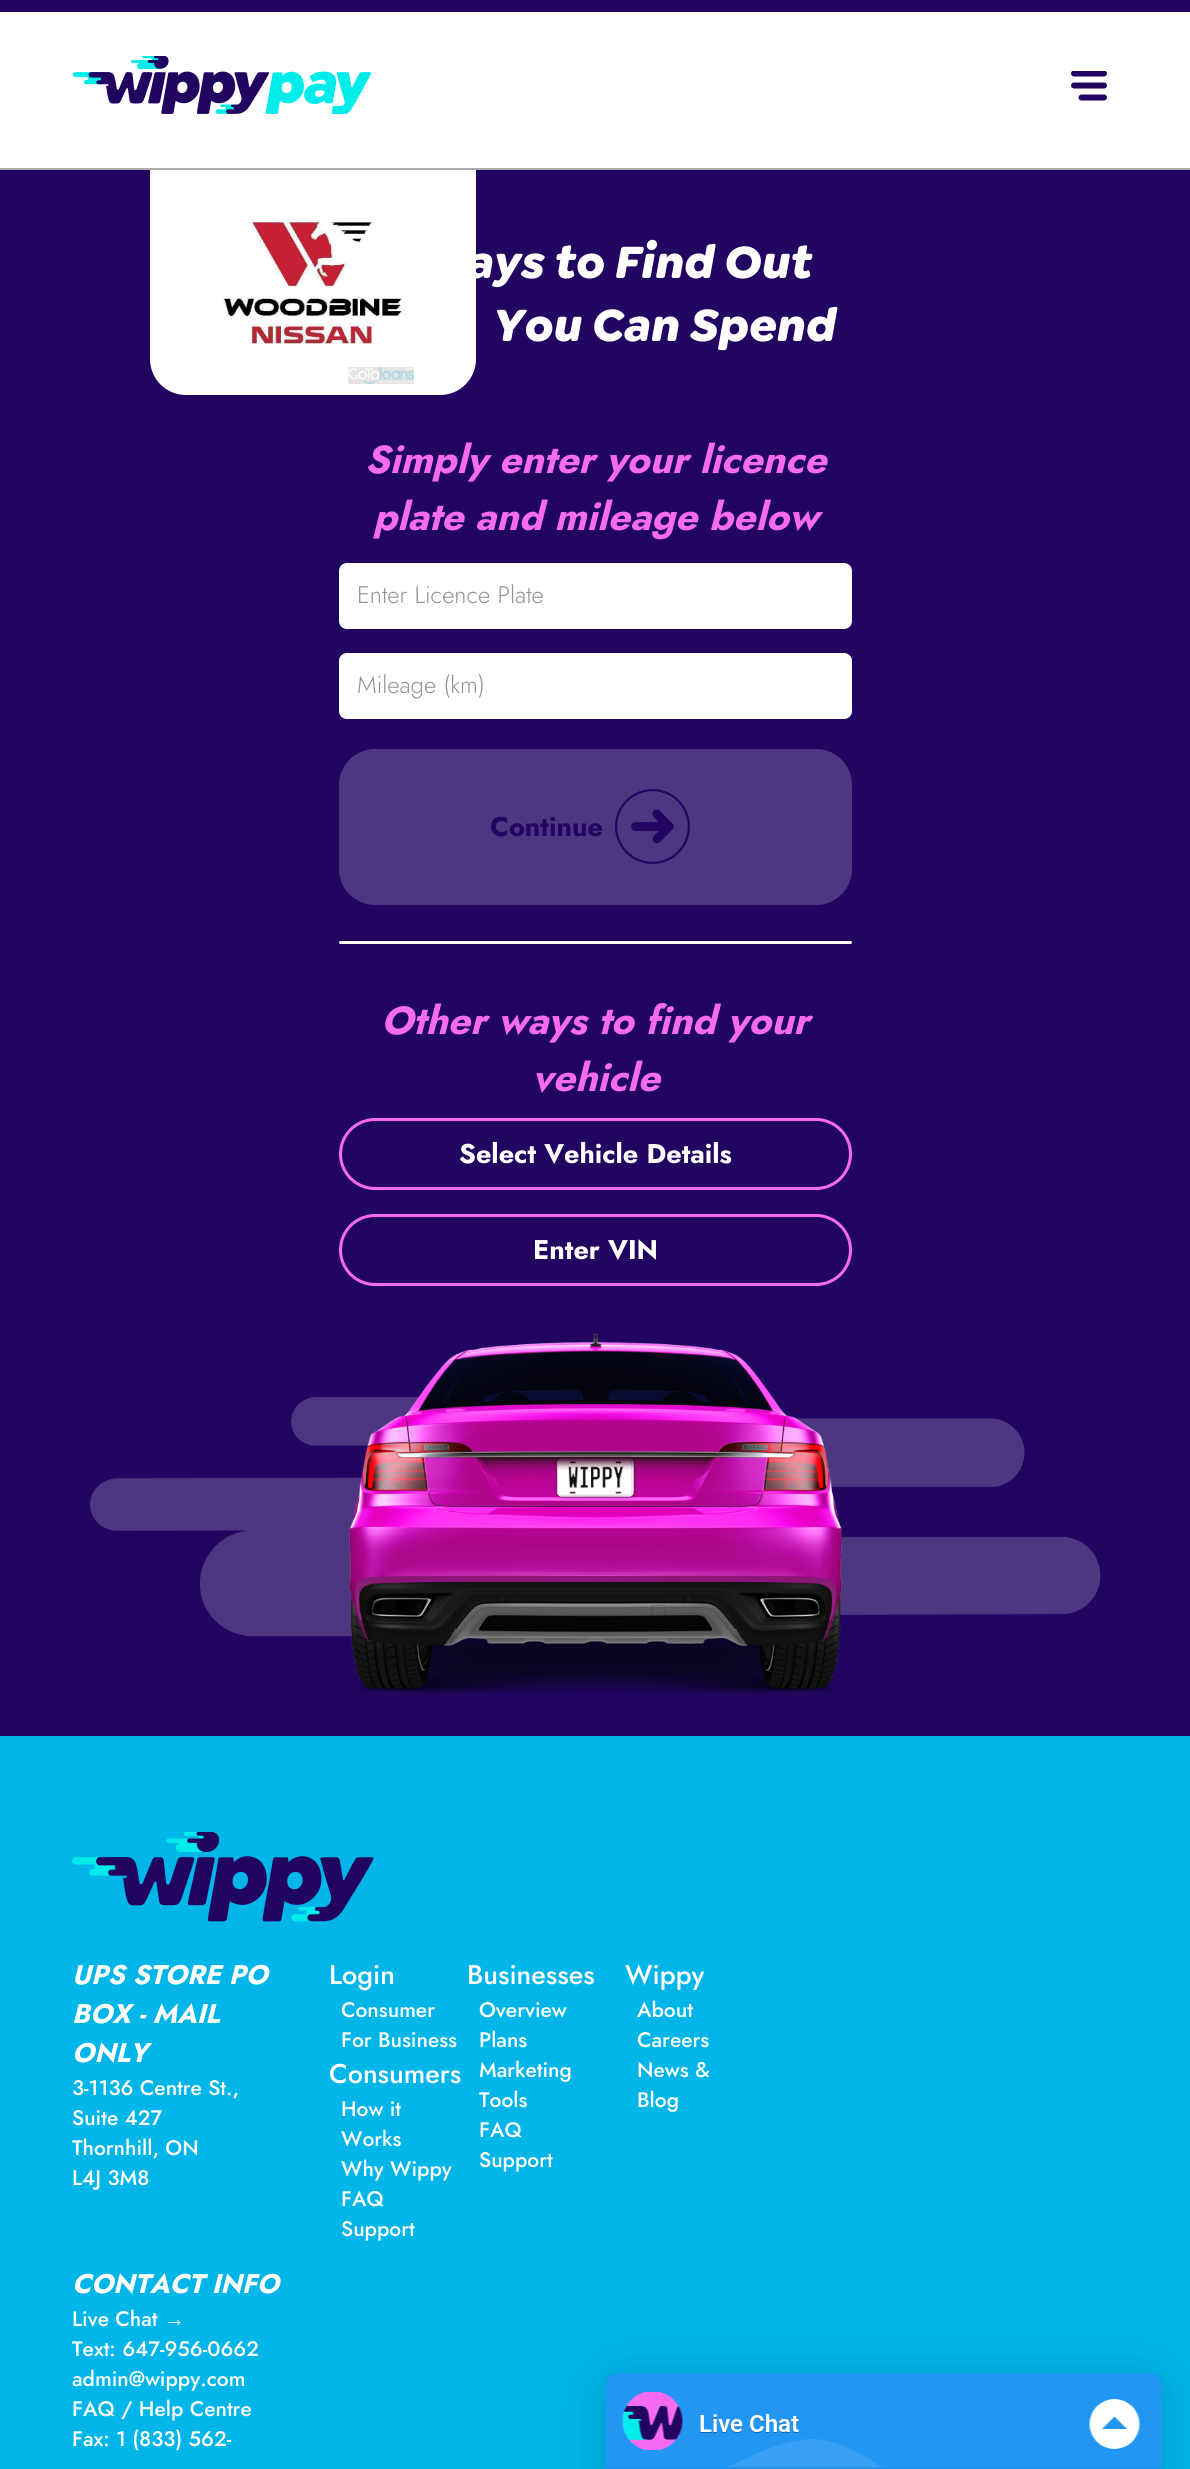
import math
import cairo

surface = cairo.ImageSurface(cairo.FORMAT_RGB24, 1190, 2469)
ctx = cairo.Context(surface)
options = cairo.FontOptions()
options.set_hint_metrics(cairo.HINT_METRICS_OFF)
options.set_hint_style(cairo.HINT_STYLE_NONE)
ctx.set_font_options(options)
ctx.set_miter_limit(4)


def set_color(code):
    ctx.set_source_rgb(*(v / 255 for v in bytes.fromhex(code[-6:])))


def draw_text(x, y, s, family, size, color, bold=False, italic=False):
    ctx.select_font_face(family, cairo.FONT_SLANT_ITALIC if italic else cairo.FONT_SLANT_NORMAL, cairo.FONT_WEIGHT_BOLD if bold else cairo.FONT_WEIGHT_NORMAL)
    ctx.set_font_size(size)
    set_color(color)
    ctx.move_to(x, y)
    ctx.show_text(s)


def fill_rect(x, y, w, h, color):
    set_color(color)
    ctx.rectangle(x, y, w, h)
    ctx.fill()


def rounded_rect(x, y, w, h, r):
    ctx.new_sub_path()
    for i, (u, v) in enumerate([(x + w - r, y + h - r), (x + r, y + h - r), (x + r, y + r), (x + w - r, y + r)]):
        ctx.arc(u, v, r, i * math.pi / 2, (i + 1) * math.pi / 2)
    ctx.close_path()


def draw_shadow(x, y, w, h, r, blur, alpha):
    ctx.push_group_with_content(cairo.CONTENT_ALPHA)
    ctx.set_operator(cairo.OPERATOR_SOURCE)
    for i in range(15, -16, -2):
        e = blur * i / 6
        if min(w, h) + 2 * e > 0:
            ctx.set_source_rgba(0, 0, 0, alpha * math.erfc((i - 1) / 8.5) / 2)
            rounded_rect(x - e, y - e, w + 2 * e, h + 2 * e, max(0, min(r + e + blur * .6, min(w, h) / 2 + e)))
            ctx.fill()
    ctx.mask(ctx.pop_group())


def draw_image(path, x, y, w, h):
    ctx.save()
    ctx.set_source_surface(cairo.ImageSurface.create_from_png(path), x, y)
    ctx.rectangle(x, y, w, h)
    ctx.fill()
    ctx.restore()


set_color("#ffffff")
ctx.paint()
fill_rect(0, 0, 1190, 12, "#210561")
fill_rect(0, 168, 1190, 2, "#acacac")
draw_image("assets/img1.png", 72, 56, 300, 58)
draw_image("assets/img2.png", 1071, 71, 36, 30)
fill_rect(0, 170, 1190, 1566, "#210561")
set_color("#ffffff")
ctx.new_path()
ctx.move_to(150, 170)
ctx.line_to(476, 170)
ctx.line_to(476, 359)
ctx.curve_to(476, 379, 460, 395, 440, 395)
ctx.line_to(186, 395)
ctx.curve_to(166, 395, 150, 379, 150, 359)
ctx.close_path()
ctx.fill()
draw_image("assets/img3.png", 222, 219, 192, 165)
draw_text(465, 278, "ays to Find Out", "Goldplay", 48, "#ffffff", bold=True)
draw_text(491, 341, "You Can Spend", "Goldplay", 48, "#ffffff", bold=True)
draw_text(365, 473, "Simply enter your licence", "Jost", 39, "#f76bf2", bold=True, italic=True)
draw_text(373, 530, "plate and mileage below", "Jost", 39, "#f76bf2", bold=True, italic=True)
set_color("#ffffff")
ctx.new_path()
ctx.move_to(347, 563)
ctx.line_to(347, 629)
ctx.curve_to(342.5, 629, 339, 625.5, 339, 621)
ctx.line_to(339, 571)
ctx.curve_to(339, 566.5, 342.5, 563, 347, 563)
ctx.close_path()
ctx.fill()
ctx.new_path()
ctx.move_to(347, 563)
ctx.line_to(844, 563)
ctx.curve_to(848.5, 563, 852, 566.5, 852, 571)
ctx.line_to(852, 621)
ctx.curve_to(852, 625.5, 848.5, 629, 844, 629)
ctx.line_to(347, 629)
ctx.close_path()
ctx.fill()
draw_text(357, 603, "Enter Licence Plate", "Jost Light", 24, "#949494")
set_color("#ffffff")
ctx.new_path()
ctx.move_to(347, 653)
ctx.line_to(347, 719)
ctx.curve_to(342.5, 719, 339, 715.5, 339, 711)
ctx.line_to(339, 661)
ctx.curve_to(339, 656.5, 342.5, 653, 347, 653)
ctx.close_path()
ctx.fill()
ctx.new_path()
ctx.move_to(347, 653)
ctx.line_to(844, 653)
ctx.curve_to(848.5, 653, 852, 656.5, 852, 661)
ctx.line_to(852, 711)
ctx.curve_to(852, 715.5, 848.5, 719, 844, 719)
ctx.line_to(347, 719)
ctx.close_path()
ctx.fill()
draw_text(357, 693, "Mileage (km)", "Jost Light", 24, "#949494")
set_color("#4d3781")
rounded_rect(339, 749, 513, 156, 36)
ctx.fill()
draw_text(490, 836, "Continue", "Jost", 27, "#210561", bold=True)
draw_image("assets/img4.png", 615, 789, 75, 75)
set_color("#f8f8f8")
rounded_rect(339, 941, 513, 3, 1.5)
ctx.fill()
draw_text(381, 1034, "Other ways to find your", "Jost", 39, "#f76bf2", bold=True, italic=True)
draw_text(532, 1091, "vehicle", "Jost", 39, "#f76bf2", bold=True, italic=True)
rounded_rect(340.5, 1119.5, 510, 69, 34.5)
ctx.set_line_width(3)
ctx.stroke()
draw_text(459, 1163, "Select Vehicle Details", "Jost", 27, "#ffffff", bold=True)
rounded_rect(340.5, 1215.5, 510, 69, 34.5)
set_color("#f76bf2")
ctx.stroke()
draw_text(533, 1259, "Enter VIN", "Jost", 27, "#ffffff", bold=True)
draw_image("assets/img5.png", 90, 1333, 1011, 363)
fill_rect(0, 1736, 1190, 733, "#00b5e8")
draw_image("assets/img6.png", 72, 1832, 302, 90)
draw_text(72, 1984, "UPS STORE PO", "Jost", 27, "#ffffff", bold=True, italic=True)
draw_text(72, 2023, "BOX - MAIL", "Jost", 27, "#ffffff", bold=True, italic=True)
draw_text(72, 2062, "ONLY", "Jost", 27, "#ffffff", bold=True, italic=True)
draw_text(72, 2095, "3-1136 Centre St.,", "Jost Medium", 21, "#ffffff")
draw_text(72, 2125, "Suite 427", "Jost Medium", 21, "#ffffff")
draw_text(72, 2155, "Thornhill, ON", "Jost Medium", 21, "#ffffff")
draw_text(72, 2185, "L4J 3M8", "Jost Medium", 21, "#ffffff")
draw_text(72, 2293, "CONTACT INFO", "Jost", 27, "#ffffff", bold=True, italic=True)
draw_text(72, 2326, "Live Chat", "Jost Medium", 21, "#ffffff")
draw_text(164, 2326, "→", "Liberation Sans", 21, "#ffffff")
draw_text(72, 2356, "Text: 647-956-0662", "Jost Medium", 21, "#ffffff")
draw_text(72, 2386, "admin@wippy.com", "Jost Medium", 21, "#ffffff")
draw_text(72, 2416, "FAQ / Help Centre", "Jost Medium", 21, "#ffffff")
draw_text(72, 2446, "Fax: 1 (833) 562-", "Jost Medium", 21, "#ffffff")
draw_text(329, 1984, "Login", "Jost Medium", 27, "#ffffff")
draw_text(341, 2017, "Consumer", "Jost Medium", 21, "#ffffff")
draw_text(341, 2047, "For Business", "Jost Medium", 21, "#ffffff")
draw_text(329, 2083, "Consumers", "Jost Medium", 27, "#ffffff")
draw_text(341, 2116, "How it", "Jost Medium", 21, "#ffffff")
draw_text(341, 2146, "Works", "Jost Medium", 21, "#ffffff")
draw_text(341, 2176, "Why Wippy", "Jost Medium", 21, "#ffffff")
draw_text(341, 2206, "FAQ", "Jost Medium", 21, "#ffffff")
draw_text(341, 2236, "Support", "Jost Medium", 21, "#ffffff")
draw_text(467, 1984, "Businesses", "Jost Medium", 27, "#ffffff")
draw_text(479, 2017, "Overview", "Jost Medium", 21, "#ffffff")
draw_text(479, 2047, "Plans", "Jost Medium", 21, "#ffffff")
draw_text(479, 2077, "Marketing", "Jost Medium", 21, "#ffffff")
draw_text(479, 2107, "Tools", "Jost Medium", 21, "#ffffff")
draw_text(479, 2137, "FAQ", "Jost Medium", 21, "#ffffff")
draw_text(479, 2167, "Support", "Jost Medium", 21, "#ffffff")
draw_text(625, 1984, "Wippy", "Jost Medium", 27, "#ffffff")
draw_text(637, 2017, "About", "Jost Medium", 21, "#ffffff")
draw_text(637, 2047, "Careers", "Jost Medium", 21, "#ffffff")
draw_text(637, 2077, "News &", "Jost Medium", 21, "#ffffff")
draw_text(637, 2107, "Blog", "Jost Medium", 21, "#ffffff")
set_color("#000000")
draw_shadow(606, 2381, 555, 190, 12, 30, 0.16)
draw_image("assets/img7.png", 606, 2373, 555, 96)
surface.write_to_png("output.png")
